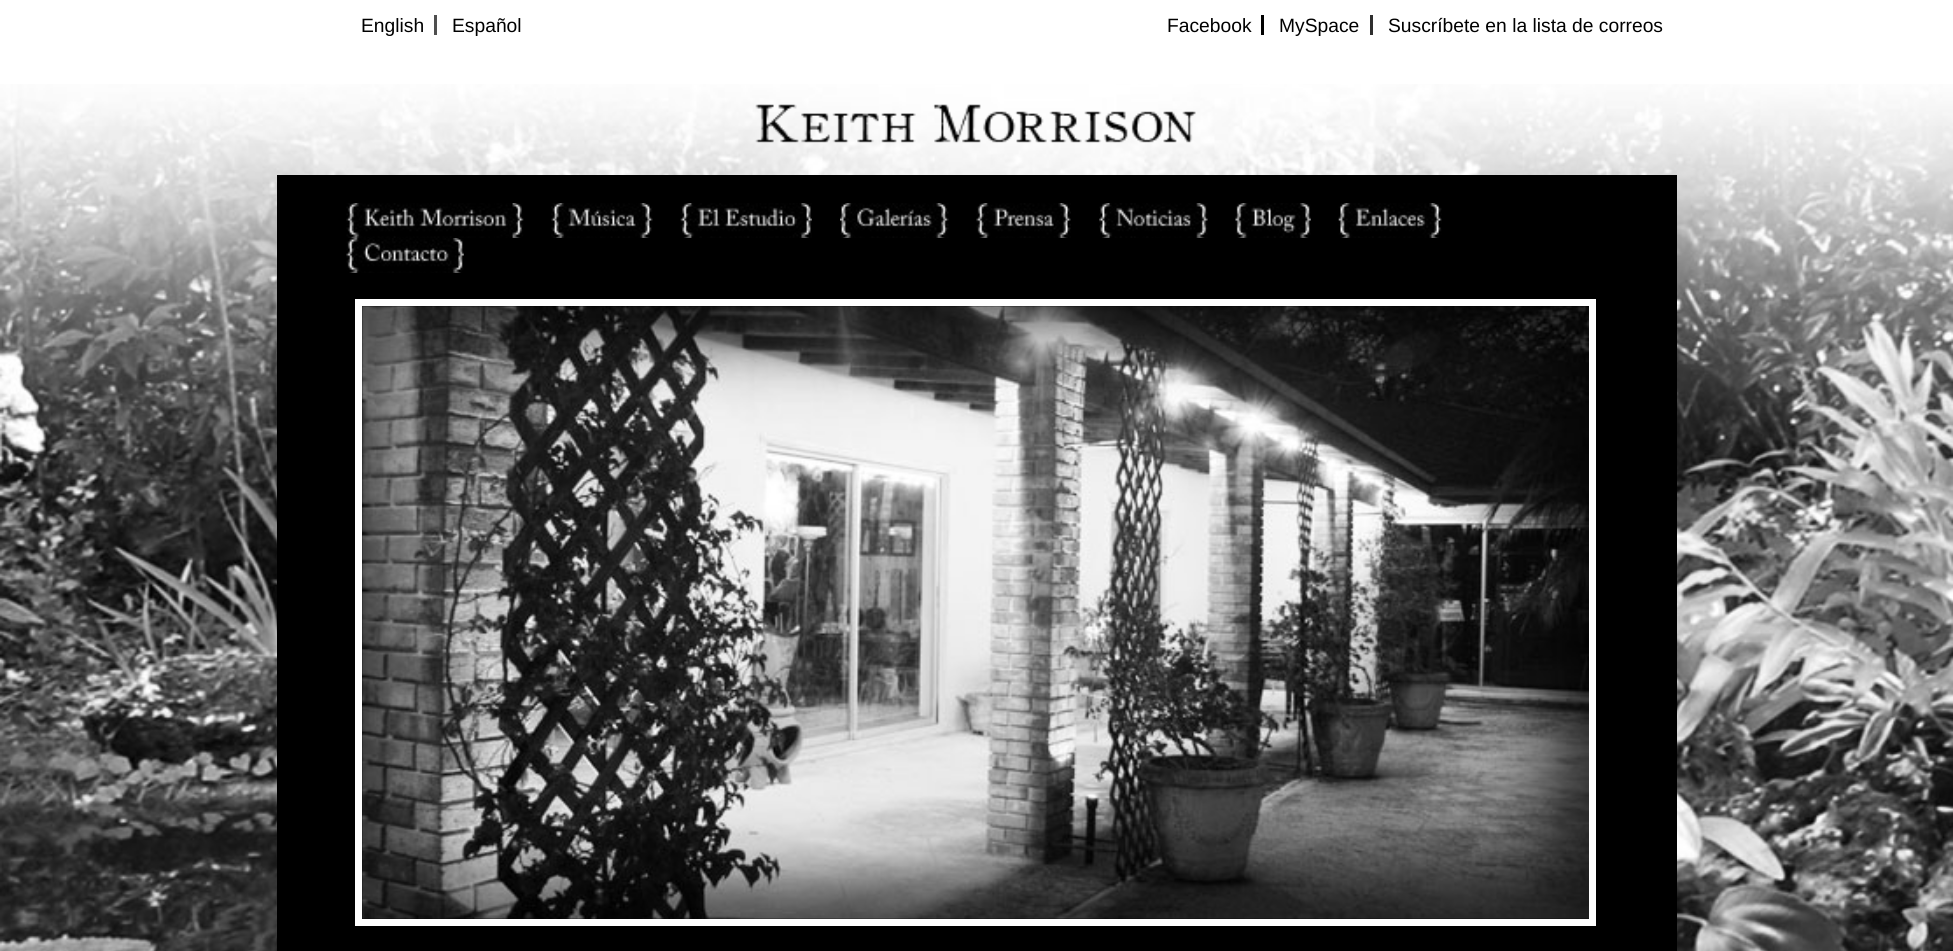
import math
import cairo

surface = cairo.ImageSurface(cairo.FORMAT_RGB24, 1953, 951)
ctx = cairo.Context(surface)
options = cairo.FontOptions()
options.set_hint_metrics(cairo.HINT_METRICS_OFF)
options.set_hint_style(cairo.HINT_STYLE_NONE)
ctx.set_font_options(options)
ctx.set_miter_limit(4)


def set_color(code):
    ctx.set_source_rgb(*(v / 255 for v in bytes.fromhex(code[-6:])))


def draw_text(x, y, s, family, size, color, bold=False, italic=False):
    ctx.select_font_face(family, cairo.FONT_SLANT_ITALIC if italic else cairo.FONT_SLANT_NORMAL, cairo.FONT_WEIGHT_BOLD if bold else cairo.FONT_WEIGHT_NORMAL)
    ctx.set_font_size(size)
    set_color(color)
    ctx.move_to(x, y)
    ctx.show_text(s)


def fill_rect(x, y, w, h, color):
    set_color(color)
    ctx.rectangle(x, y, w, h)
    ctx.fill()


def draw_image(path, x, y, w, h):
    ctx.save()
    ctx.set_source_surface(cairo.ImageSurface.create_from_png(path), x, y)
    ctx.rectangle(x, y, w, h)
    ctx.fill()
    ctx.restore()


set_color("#ffffff")
ctx.paint()
draw_image("assets/img1.png", 0, 84, 1953, 867)
fill_rect(434, 15, 3, 20, "#4f4f4f")
draw_text(361, 32, "English", "Liberation Sans", 19.25, "#000000")
draw_text(452, 32, "Español", "Liberation Sans", 19.25, "#000000")
fill_rect(1261, 15, 3, 20, "#000000")
draw_text(1167, 32, "Facebook", "Liberation Sans", 19.25, "#000000")
fill_rect(1370, 15, 3, 20, "#2f2f2f")
draw_text(1279, 32, "MySpace", "Liberation Sans", 19.25, "#000000")
draw_text(1388, 32, "Suscríbete en la lista de correos", "Liberation Sans", 19.25, "#000000")
draw_image("assets/img2.png", 755, 104, 441, 39)
fill_rect(277, 175, 1400, 776, "#000000")
draw_image("assets/img3.png", 346, 203, 178, 35)
draw_image("assets/img4.png", 551, 203, 102, 35)
draw_image("assets/img5.png", 680, 203, 132, 35)
draw_image("assets/img6.png", 840, 203, 109, 35)
draw_image("assets/img7.png", 976, 203, 95, 35)
draw_image("assets/img8.png", 1099, 203, 109, 35)
draw_image("assets/img9.png", 1235, 203, 76, 35)
draw_image("assets/img10.png", 1338, 203, 104, 35)
draw_image("assets/img11.png", 346, 238, 118, 35)
ctx.rectangle(358.5, 302.5, 1234, 620)
set_color("#ffffff")
ctx.set_line_width(7)
ctx.stroke()
draw_image("assets/img12.png", 362, 306, 1227, 613)
surface.write_to_png("output.png")
